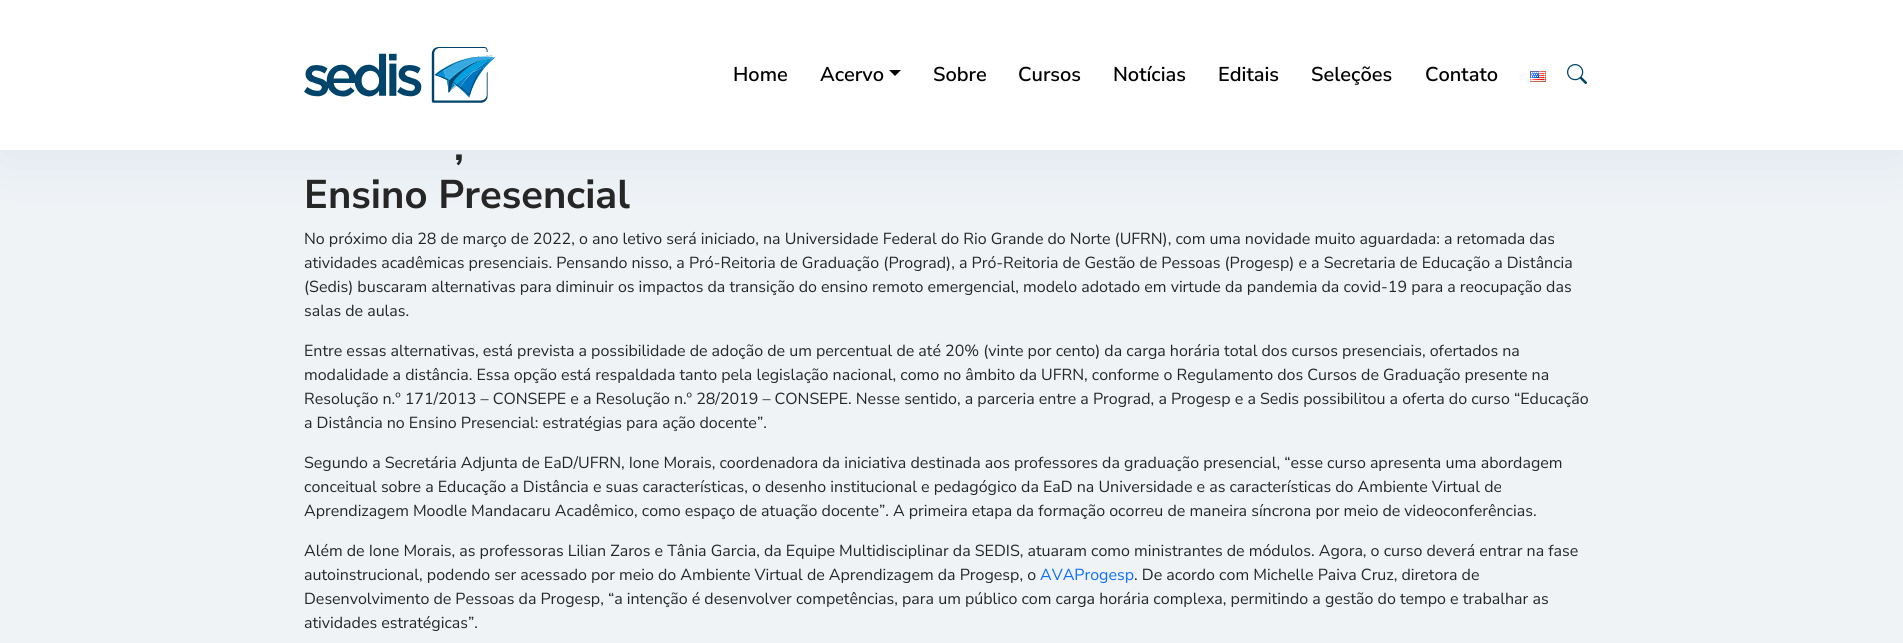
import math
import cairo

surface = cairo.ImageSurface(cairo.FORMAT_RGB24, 1903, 643)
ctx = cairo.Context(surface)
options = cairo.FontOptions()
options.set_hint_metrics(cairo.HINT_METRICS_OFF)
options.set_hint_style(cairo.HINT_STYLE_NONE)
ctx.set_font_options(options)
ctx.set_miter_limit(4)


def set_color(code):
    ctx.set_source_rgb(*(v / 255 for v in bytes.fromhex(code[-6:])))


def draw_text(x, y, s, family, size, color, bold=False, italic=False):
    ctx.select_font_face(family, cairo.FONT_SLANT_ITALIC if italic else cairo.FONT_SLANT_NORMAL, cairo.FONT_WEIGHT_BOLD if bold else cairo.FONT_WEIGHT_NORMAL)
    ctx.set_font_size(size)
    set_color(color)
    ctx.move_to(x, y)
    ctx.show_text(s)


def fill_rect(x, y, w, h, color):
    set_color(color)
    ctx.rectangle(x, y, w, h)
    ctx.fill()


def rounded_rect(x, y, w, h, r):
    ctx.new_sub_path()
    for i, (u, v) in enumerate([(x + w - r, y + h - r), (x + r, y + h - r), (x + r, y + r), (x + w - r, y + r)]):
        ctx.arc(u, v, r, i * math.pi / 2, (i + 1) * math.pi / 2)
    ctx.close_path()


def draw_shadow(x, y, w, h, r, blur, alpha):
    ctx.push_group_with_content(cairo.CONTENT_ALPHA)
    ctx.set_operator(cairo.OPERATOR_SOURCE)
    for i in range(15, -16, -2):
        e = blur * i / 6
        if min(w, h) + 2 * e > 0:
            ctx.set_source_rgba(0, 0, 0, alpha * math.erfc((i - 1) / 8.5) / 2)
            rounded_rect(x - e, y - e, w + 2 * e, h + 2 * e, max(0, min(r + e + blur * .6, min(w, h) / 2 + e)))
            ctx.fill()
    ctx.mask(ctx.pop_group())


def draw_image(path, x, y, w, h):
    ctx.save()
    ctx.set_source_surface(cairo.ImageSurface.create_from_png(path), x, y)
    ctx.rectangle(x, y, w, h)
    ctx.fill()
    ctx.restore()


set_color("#eff3f6")
ctx.paint()
set_color("#004e8d")
draw_shadow(0, 4, 1903, 150, 0, 32, 0.08)
fill_rect(0, 0, 1903, 150, "#ffffff")
draw_image("assets/img1.png", 304, 47, 191, 56)
draw_text(733, 81, "Home", "Nunito Sans SemiBold", 20, "#000000")
draw_text(820, 81, "Acervo", "Nunito Sans SemiBold", 20, "#000000")
ctx.new_path()
ctx.move_to(889, 70)
ctx.line_to(901, 70)
ctx.line_to(895, 76)
ctx.close_path()
ctx.fill()
draw_text(933, 81, "Sobre", "Nunito Sans SemiBold", 20, "#000000")
draw_text(1018, 81, "Cursos", "Nunito Sans SemiBold", 20, "#000000")
draw_text(1113, 81, "Notícias", "Nunito Sans SemiBold", 20, "#000000")
draw_text(1218, 81, "Editais", "Nunito Sans SemiBold", 20, "#000000")
draw_text(1311, 81, "Seleções", "Nunito Sans SemiBold", 20, "#000000")
draw_text(1425, 81, "Contato", "Nunito Sans SemiBold", 20, "#000000")
draw_image("assets/img2.png", 1530, 71, 16, 11)
draw_image("assets/img3.png", 1567, 64, 20, 20)
draw_text(454, 160, ",", "Nunito Sans", 40, "#262626", bold=True)
draw_text(304, 208, "Ensino Presencial", "Nunito Sans", 40, "#262626", bold=True)
draw_text(304, 244, "No próximo dia 28 de março de 2022, o ano letivo será iniciado, na Universidade Federal do Rio Grande do Norte (UFRN), com uma novidade muito aguardada: a retomada das", "Nunito Sans", 16, "#262626")
draw_text(304, 268, "atividades acadêmicas presenciais. Pensando nisso, a Pró-Reitoria de Graduação (Prograd), a Pró-Reitoria de Gestão de Pessoas (Progesp) e a Secretaria de Educação a Distância", "Nunito Sans", 16, "#262626")
draw_text(304, 292, "(Sedis) buscaram alternativas para diminuir os impactos da transição do ensino remoto emergencial, modelo adotado em virtude da pandemia da covid-19 para a reocupação das", "Nunito Sans", 16, "#262626")
draw_text(304, 316, "salas de aulas.", "Nunito Sans", 16, "#262626")
draw_text(304, 356, "Entre essas alternativas, está prevista a possibilidade de adoção de um percentual de até 20% (vinte por cento) da carga horária total dos cursos presenciais, ofertados na", "Nunito Sans", 16, "#262626")
draw_text(304, 380, "modalidade a distância. Essa opção está respaldada tanto pela legislação nacional, como no âmbito da UFRN, conforme o Regulamento dos Cursos de Graduação presente na", "Nunito Sans", 16, "#262626")
draw_text(304, 404, "Resolução n.º 171/2013 – CONSEPE e a Resolução n.º 28/2019 – CONSEPE. Nesse sentido, a parceria entre a Prograd, a Progesp e a Sedis possibilitou a oferta do curso “Educação", "Nunito Sans", 16, "#262626")
draw_text(304, 428, "a Distância no Ensino Presencial: estratégias para ação docente”.", "Nunito Sans", 16, "#262626")
draw_text(304, 468, "Segundo a Secretária Adjunta de EaD/UFRN, Ione Morais, coordenadora da iniciativa destinada aos professores da graduação presencial, “esse curso apresenta uma abordagem", "Nunito Sans", 16, "#262626")
draw_text(304, 492, "conceitual sobre a Educação a Distância e suas características, o desenho institucional e pedagógico da EaD na Universidade e as características do Ambiente Virtual de", "Nunito Sans", 16, "#262626")
draw_text(304, 516, "Aprendizagem Moodle Mandacaru Acadêmico, como espaço de atuação docente”. A primeira etapa da formação ocorreu de maneira síncrona por meio de videoconferências.", "Nunito Sans", 16, "#262626")
draw_text(304, 556, "Além de Ione Morais, as professoras Lilian Zaros e Tânia Garcia, da Equipe Multidisciplinar da SEDIS, atuaram como ministrantes de módulos. Agora, o curso deverá entrar na fase", "Nunito Sans", 16, "#262626")
draw_text(304, 580, "autoinstrucional, podendo ser acessado por meio do Ambiente Virtual de Aprendizagem da Progesp, o", "Nunito Sans", 16, "#262626")
draw_text(1040, 580, "AVAProgesp", "Nunito Sans", 16, "#0d6efd")
draw_text(1134, 580, ". De acordo com Michelle Paiva Cruz, diretora de", "Nunito Sans", 16, "#262626")
draw_text(304, 604, "Desenvolvimento de Pessoas da Progesp, “a intenção é desenvolver competências, para um público com carga horária complexa, permitindo a gestão do tempo e trabalhar as", "Nunito Sans", 16, "#262626")
draw_text(304, 628, "atividades estratégicas”.", "Nunito Sans", 16, "#262626")
surface.write_to_png("output.png")
